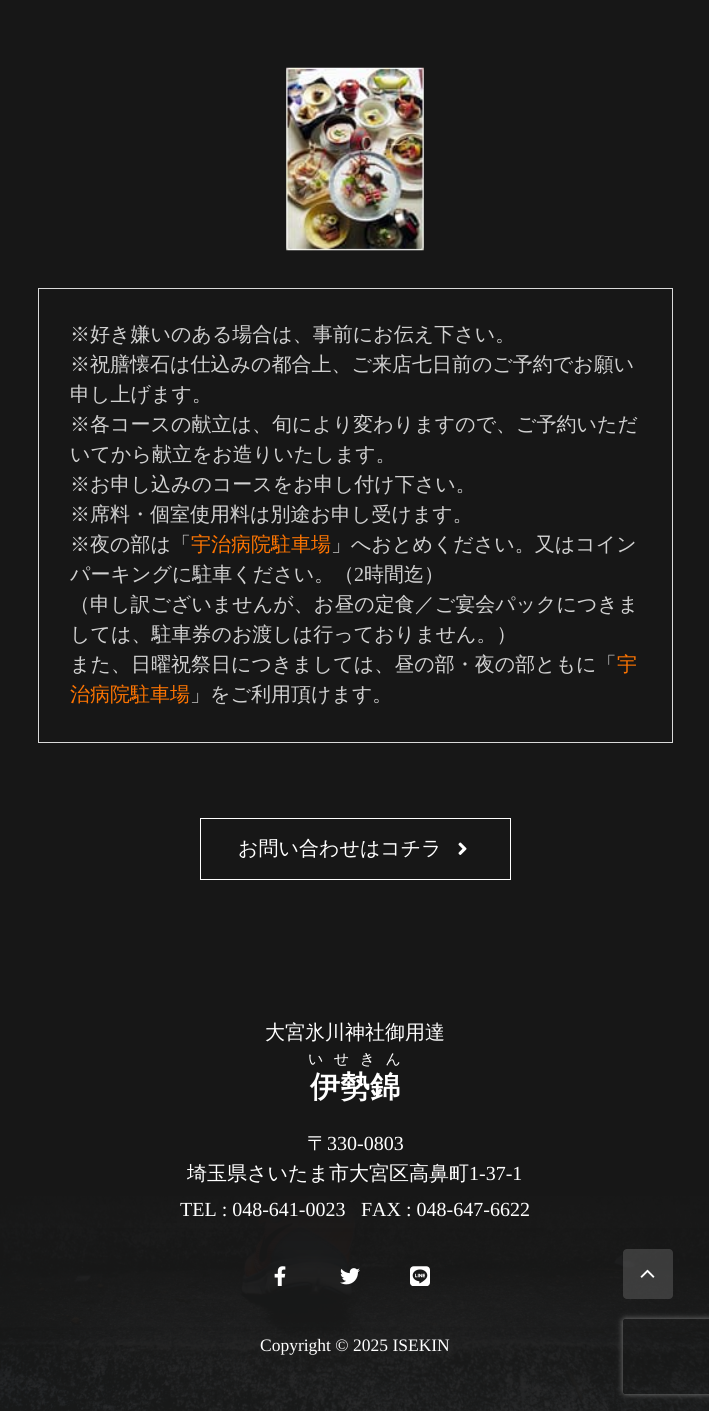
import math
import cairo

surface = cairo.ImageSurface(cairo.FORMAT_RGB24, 709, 1411)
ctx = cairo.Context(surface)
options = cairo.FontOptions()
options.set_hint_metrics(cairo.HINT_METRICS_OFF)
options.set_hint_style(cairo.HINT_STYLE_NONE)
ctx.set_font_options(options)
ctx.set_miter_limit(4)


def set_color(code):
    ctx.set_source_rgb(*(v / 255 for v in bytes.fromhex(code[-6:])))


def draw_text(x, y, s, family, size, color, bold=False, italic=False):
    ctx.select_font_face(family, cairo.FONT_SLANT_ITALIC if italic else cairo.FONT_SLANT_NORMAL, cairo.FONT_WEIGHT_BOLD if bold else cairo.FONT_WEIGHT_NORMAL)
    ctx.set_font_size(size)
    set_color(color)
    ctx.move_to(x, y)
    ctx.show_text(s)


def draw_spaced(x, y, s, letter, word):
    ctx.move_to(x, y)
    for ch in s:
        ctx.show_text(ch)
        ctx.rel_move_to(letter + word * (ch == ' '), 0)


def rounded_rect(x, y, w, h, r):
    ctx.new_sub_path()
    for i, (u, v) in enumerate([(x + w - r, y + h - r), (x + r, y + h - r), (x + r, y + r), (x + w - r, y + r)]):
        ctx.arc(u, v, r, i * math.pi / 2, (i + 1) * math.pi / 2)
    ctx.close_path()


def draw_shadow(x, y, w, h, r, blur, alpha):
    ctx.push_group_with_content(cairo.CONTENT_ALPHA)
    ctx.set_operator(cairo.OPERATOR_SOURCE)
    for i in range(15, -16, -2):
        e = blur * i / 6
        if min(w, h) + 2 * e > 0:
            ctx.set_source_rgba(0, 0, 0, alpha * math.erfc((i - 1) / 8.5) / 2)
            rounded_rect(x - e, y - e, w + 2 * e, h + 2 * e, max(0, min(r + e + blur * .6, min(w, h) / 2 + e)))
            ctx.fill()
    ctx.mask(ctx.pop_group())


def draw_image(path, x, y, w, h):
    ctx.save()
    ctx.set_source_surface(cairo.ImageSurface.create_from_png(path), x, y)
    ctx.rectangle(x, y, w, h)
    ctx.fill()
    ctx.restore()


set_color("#171717")
ctx.paint()
draw_image("assets/img1.png", 286, 67, 138, 184)
ctx.rectangle(38.5, 288.5, 634, 454)
set_color("#dadada")
ctx.set_line_width(1)
ctx.stroke()
draw_text(70, 341, "※好き嫌いのある場合は、事前にお伝え下さい。", "WenQuanYi Zen Hei Medium", 20, "#d1d1d1")
draw_text(70, 371, "※祝膳懐石は仕込みの都合上、ご来店七日前のご予約でお願い", "WenQuanYi Zen Hei Medium", 20, "#d1d1d1")
draw_text(70, 401, "申し上げます。", "WenQuanYi Zen Hei Medium", 20, "#d1d1d1")
draw_text(70, 431, "※各コースの献立は、旬により変わりますので、ご予約いただ", "WenQuanYi Zen Hei Medium", 20, "#d1d1d1")
draw_text(70, 461, "いてから献立をお造りいたします。", "WenQuanYi Zen Hei Medium", 20, "#d1d1d1")
draw_text(70, 491, "※お申し込みのコースをお申し付け下さい。", "WenQuanYi Zen Hei Medium", 20, "#d1d1d1")
draw_text(70, 521, "※席料・個室使用料は別途お申し受けます。", "WenQuanYi Zen Hei Medium", 20, "#d1d1d1")
draw_text(70, 551, "※夜の部は「", "WenQuanYi Zen Hei Medium", 20, "#d1d1d1")
draw_text(191, 551, "宇治病院駐車場", "WenQuanYi Zen Hei Medium", 20, "#fd7401")
draw_text(331, 551, "」へおとめください。又はコイン", "WenQuanYi Zen Hei Medium", 20, "#d1d1d1")
draw_text(70, 581, "パーキングに駐車ください。（", "WenQuanYi Zen Hei Medium", 20, "#d1d1d1")
draw_text(354, 581, "2", "Liberation Serif", 20, "#d1d1d1")
draw_text(364, 581, "時間迄）", "WenQuanYi Zen Hei Medium", 20, "#d1d1d1")
draw_text(70, 611, "（申し訳ございませんが、お昼の定食／ご宴会パックにつきま", "WenQuanYi Zen Hei Medium", 20, "#d1d1d1")
draw_text(70, 641, "しては、駐車券のお渡しは行っておりません。）", "WenQuanYi Zen Hei Medium", 20, "#d1d1d1")
draw_text(70, 671, "また、日曜祝祭日につきましては、昼の部・夜の部ともに「", "WenQuanYi Zen Hei Medium", 20, "#d1d1d1")
draw_text(617, 671, "宇", "WenQuanYi Zen Hei Medium", 20, "#fd7401")
draw_text(70, 701, "治病院駐車場", "WenQuanYi Zen Hei Medium", 20, "#fd7401")
draw_text(190, 701, "」をご利用頂けます。", "WenQuanYi Zen Hei Medium", 20, "#d1d1d1")
ctx.rectangle(200.5, 818.5, 310, 61)
set_color("#ffffff")
ctx.stroke()
draw_text(238, 855, "お問い合わせはコチラ", "WenQuanYi Zen Hei Medium", 20, "#ffffff")
draw_image("assets/img2.png", 458, 842, 9, 13)
draw_text(265, 1039, "大宮氷川神社御用達", "WenQuanYi Zen Hei Medium", 20, "#ffffff")
ctx.set_font_size(15)
draw_spaced(308, 1064, "いせきん", 10.5, 0)
draw_text(310, 1097, "伊勢錦", "WenQuanYi Zen Hei", 30, "#ffffff", bold=True)
draw_text(307, 1150, "〒", "WenQuanYi Zen Hei Medium", 20, "#ffffff")
draw_text(327, 1150, "330-0803", "Liberation Serif", 20, "#ffffff")
draw_text(187, 1180, "埼玉県さいたま市大宮区高鼻町", "WenQuanYi Zen Hei Medium", 20, "#ffffff")
draw_text(469, 1180, "1-37-1", "Liberation Serif", 20, "#ffffff")
draw_image("assets/img6.png", 0, 1196, 709, 215)
gradient = cairo.LinearGradient(355, 955, 355, 1411)
gradient.add_color_stop_rgba(0.5, 0.09, 0.09, 0.09, 1)
gradient.add_color_stop_rgba(1, 0.09, 0.09, 0.09, 0.9)
ctx.set_source(gradient)
ctx.rectangle(0, 1196, 709, 215)
ctx.fill()
draw_text(180, 1216, "TEL : 048-641-0023", "Liberation Serif", 20, "#ffffff")
draw_text(361, 1216, "FAX : 048-647-6622", "Liberation Serif", 20, "#ffffff")
draw_image("assets/img3.png", 274, 1266, 12, 20)
draw_image("assets/img4.png", 340, 1268, 20, 17)
draw_image("assets/img5.png", 410, 1266, 20, 20)
draw_text(260, 1351, "Copyright © 2025 ISEKIN", "Liberation Serif", 17.5, "#ffffff")
ctx.set_source_rgba(0.38, 0.38, 0.38, 0.5)
rounded_rect(623, 1249, 50, 50, 4)
ctx.fill()
draw_image("assets/img7.png", 640, 1269, 15, 9)
ctx.save()
ctx.set_fill_rule(cairo.FILL_RULE_EVEN_ODD)
ctx.new_path()
ctx.move_to(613, 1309)
ctx.line_to(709, 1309)
ctx.line_to(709, 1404)
ctx.line_to(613, 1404)
ctx.close_path()
ctx.move_to(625.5, 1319)
ctx.line_to(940.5, 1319)
ctx.curve_to(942, 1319, 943, 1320, 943, 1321.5)
ctx.line_to(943, 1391.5)
ctx.curve_to(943, 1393, 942, 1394, 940.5, 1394)
ctx.line_to(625.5, 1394)
ctx.curve_to(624, 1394, 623, 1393, 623, 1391.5)
ctx.line_to(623, 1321.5)
ctx.curve_to(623, 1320, 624, 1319, 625.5, 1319)
ctx.close_path()
ctx.clip()
set_color("#808080")
draw_shadow(623, 1319, 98, 75, 2.5, 3, 1)
ctx.restore()
surface.write_to_png("output.png")
